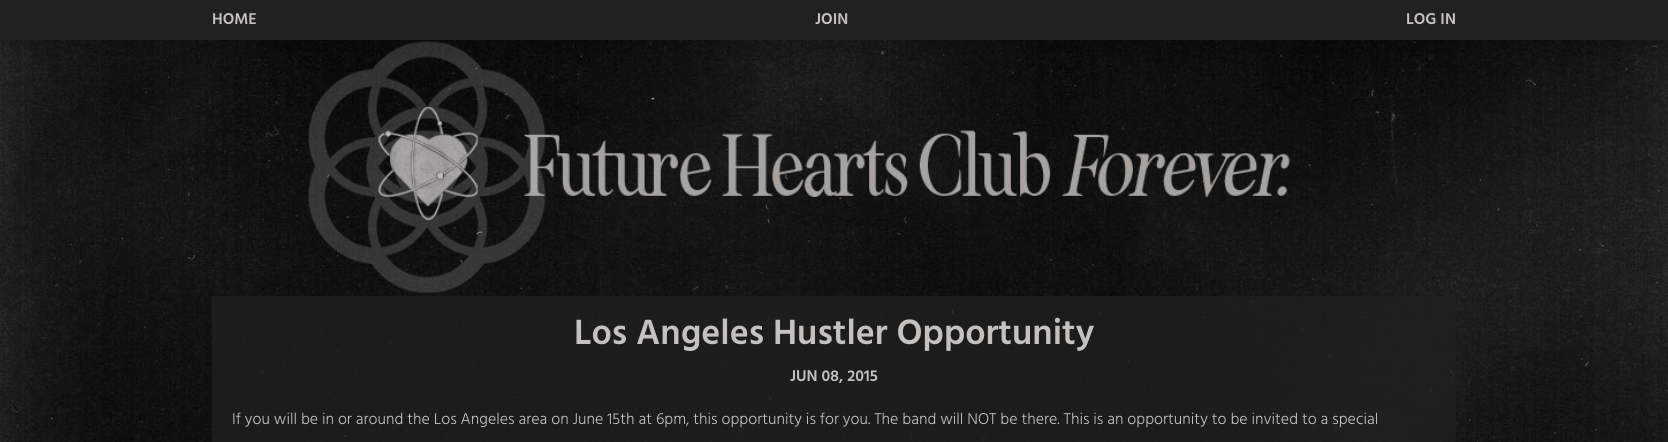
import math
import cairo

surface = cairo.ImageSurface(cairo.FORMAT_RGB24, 1668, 442)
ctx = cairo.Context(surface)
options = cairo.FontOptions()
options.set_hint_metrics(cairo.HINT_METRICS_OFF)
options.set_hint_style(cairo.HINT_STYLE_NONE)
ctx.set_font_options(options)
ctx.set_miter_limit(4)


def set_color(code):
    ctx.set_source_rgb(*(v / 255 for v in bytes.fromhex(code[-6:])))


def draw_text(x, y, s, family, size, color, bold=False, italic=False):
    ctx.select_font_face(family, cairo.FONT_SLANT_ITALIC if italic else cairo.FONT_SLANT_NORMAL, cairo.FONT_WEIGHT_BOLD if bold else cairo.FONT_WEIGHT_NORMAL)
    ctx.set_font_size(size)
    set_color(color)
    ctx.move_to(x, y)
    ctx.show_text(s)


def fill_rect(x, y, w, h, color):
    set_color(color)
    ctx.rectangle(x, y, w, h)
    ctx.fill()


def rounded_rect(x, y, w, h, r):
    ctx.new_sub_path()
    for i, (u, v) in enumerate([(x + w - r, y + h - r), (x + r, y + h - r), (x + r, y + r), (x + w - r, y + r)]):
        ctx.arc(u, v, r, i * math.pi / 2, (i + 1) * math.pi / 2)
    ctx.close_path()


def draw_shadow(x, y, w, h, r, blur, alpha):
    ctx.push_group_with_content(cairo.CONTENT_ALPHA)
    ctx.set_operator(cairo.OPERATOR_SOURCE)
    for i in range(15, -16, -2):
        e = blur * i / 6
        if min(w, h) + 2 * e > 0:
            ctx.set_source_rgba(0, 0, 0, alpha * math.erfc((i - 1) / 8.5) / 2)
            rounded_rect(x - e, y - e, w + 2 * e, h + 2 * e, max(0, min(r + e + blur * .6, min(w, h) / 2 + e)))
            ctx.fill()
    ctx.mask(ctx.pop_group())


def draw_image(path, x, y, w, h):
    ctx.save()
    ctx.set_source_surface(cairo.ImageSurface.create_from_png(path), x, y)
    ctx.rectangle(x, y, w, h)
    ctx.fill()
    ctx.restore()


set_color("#ffffff")
ctx.paint()
draw_image("assets/img1.png", 0, 40, 1668, 402)
draw_image("assets/img2.png", 308, 41, 982, 252)
set_color("#000000")
draw_shadow(0, 8, 1668, 40, 0, 8, 0.15)
fill_rect(0, 0, 1668, 40, "#212121")
draw_text(212, 24, "HOME", "Hind SemiBold", 16, "#c4c1bf")
draw_text(815, 24, "JOIN", "Hind SemiBold", 16, "#c4c1bf")
draw_text(1406, 24, "LOG IN", "Hind SemiBold", 16, "#c4c1bf")
ctx.set_source_rgba(0.129, 0.129, 0.129, 0.75)
ctx.rectangle(212, 296, 1244, 146)
ctx.fill()
draw_text(574, 344, "Los Angeles Hustler Opportunity", "Hind SemiBold", 36, "#c4c1bf")
draw_text(790, 381, "JUN 08, 2015", "Hind SemiBold", 16, "#c4c1bf")
draw_text(232, 424, "If you will be in or around the Los Angeles area on June 15th at 6pm, this opportunity is for you. The band will NOT be there. This is an opportunity to be invited to a special", "Hind Light", 16, "#c4c1bf")
surface.write_to_png("output.png")
